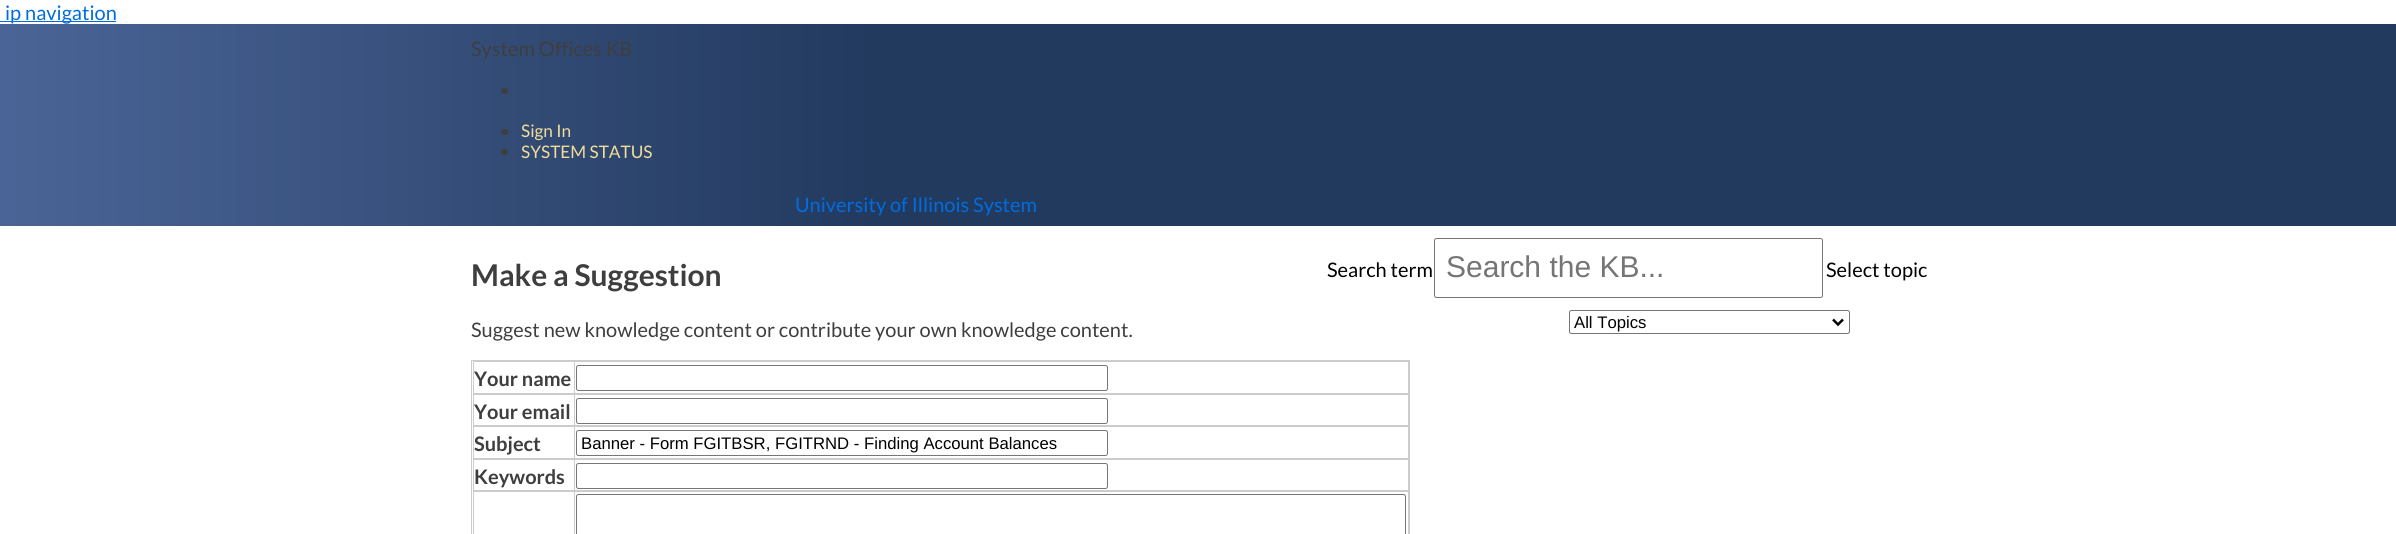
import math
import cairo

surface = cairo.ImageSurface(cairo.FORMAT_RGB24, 2396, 534)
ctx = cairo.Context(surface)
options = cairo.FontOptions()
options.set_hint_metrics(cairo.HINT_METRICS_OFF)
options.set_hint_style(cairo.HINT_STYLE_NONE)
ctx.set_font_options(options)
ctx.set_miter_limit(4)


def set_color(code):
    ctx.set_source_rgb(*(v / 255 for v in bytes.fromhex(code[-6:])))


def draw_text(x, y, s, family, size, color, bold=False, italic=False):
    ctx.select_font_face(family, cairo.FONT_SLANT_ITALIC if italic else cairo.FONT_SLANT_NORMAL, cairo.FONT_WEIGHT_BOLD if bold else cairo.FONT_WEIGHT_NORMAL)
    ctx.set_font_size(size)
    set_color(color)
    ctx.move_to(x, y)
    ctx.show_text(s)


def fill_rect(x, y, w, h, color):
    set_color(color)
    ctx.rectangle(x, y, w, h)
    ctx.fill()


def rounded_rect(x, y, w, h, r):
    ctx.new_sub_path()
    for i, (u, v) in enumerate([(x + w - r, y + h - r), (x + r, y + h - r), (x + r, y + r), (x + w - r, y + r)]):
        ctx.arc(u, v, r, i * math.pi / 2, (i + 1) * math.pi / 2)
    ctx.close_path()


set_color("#ffffff")
ctx.paint()
fill_rect(0, 21, 116, 1, "#006cdf")
draw_text(5, 20, "ip navigation", "Lato", 20, "#006cdf")
gradient = cairo.LinearGradient(-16, 132, 2396, 132)
gradient.add_color_stop_rgba(0, 0.294, 0.396, 0.596, 1)
gradient.add_color_stop_rgba(0.37, 0.133, 0.227, 0.369, 1)
gradient.add_color_stop_rgba(1, 0.133, 0.227, 0.369, 1)
ctx.set_source(gradient)
ctx.rectangle(0, 24, 2396, 202)
ctx.fill()
draw_text(471, 56, "System Offices KB", "Lato", 20, "#3e3e3e")
rounded_rect(501, 88, 7, 6, 3)
ctx.fill()
rounded_rect(501, 129, 7, 6, 3)
ctx.fill()
draw_text(521, 137, "Sign In", "Lato", 17.25, "#f4dd9a")
set_color("#3e3e3e")
rounded_rect(501, 149, 7, 6, 3)
ctx.fill()
draw_text(521, 158, "SYSTEM STATUS", "Lato", 17.25, "#f4dd9a")
draw_text(795, 212, "University of Illinois System", "Lato", 20, "#006cdf")
draw_text(1327, 277, "Search term", "Lato", 20, "#000000")
rounded_rect(1434.5, 238.5, 388, 59, 2)
set_color("#767676")
ctx.set_line_width(1)
ctx.stroke()
draw_text(1446, 277, "Search the KB...", "Liberation Sans", 30, "#757575")
draw_text(1826, 277, "Select topic", "Lato", 20, "#000000")
rounded_rect(1569.5, 310.5, 280, 23, 2)
set_color("#767676")
ctx.stroke()
ctx.new_path()
ctx.move_to(1833, 319.5)
ctx.line_to(1838, 324.5)
ctx.line_to(1843, 319.5)
set_color("#000000")
ctx.set_line_width(2.5)
ctx.stroke()
draw_text(1574, 328, "All Topics", "Liberation Sans", 16.7, "#000000")
draw_text(471, 286, "Make a Suggestion", "Lato", 30, "#3e3e3e", bold=True)
draw_text(471, 337, "Suggest new knowledge content or contribute your own knowledge content.", "Lato", 20, "#3e3e3e")
ctx.rectangle(471.5, 360.5, 938, 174)
set_color("#cccccc")
ctx.set_line_width(1)
ctx.stroke()
ctx.rectangle(473.5, 361.5, 935, 32)
ctx.stroke()
draw_text(474, 386, "Your name", "Lato", 20, "#3e3e3e", bold=True)
ctx.rectangle(574.5, 361.5, 834, 32)
set_color("#cccccc")
ctx.stroke()
rounded_rect(576.5, 365.5, 531, 25, 2)
set_color("#767676")
ctx.stroke()
ctx.rectangle(473.5, 394.5, 935, 31)
set_color("#cccccc")
ctx.stroke()
draw_text(474, 419, "Your email", "Lato", 20, "#3e3e3e", bold=True)
ctx.rectangle(574.5, 394.5, 834, 31)
set_color("#cccccc")
ctx.stroke()
rounded_rect(576.5, 398.5, 531, 25, 2)
set_color("#767676")
ctx.stroke()
ctx.rectangle(473.5, 426.5, 935, 32)
set_color("#cccccc")
ctx.stroke()
draw_text(474, 451, "Subject", "Lato", 20, "#3e3e3e", bold=True)
ctx.rectangle(574.5, 426.5, 834, 32)
set_color("#cccccc")
ctx.stroke()
rounded_rect(576.5, 430.5, 531, 25, 2)
set_color("#767676")
ctx.stroke()
draw_text(581, 449, "Banner - Form FGITBSR, FGITRND - Finding Account Balances", "Liberation Sans", 16.7, "#000000")
ctx.rectangle(473.5, 459.5, 935, 31)
set_color("#cccccc")
ctx.stroke()
draw_text(474, 484, "Keywords", "Lato", 20, "#3e3e3e", bold=True)
ctx.rectangle(574.5, 459.5, 834, 31)
set_color("#cccccc")
ctx.stroke()
rounded_rect(576.5, 463.5, 531, 25, 2)
set_color("#767676")
ctx.stroke()
ctx.rectangle(473.5, 491.5, 935, 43)
set_color("#cccccc")
ctx.stroke()
ctx.rectangle(574.5, 491.5, 834, 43)
ctx.stroke()
rounded_rect(576.5, 494.5, 829, 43, 2)
set_color("#767676")
ctx.stroke()
surface.write_to_png("output.png")
